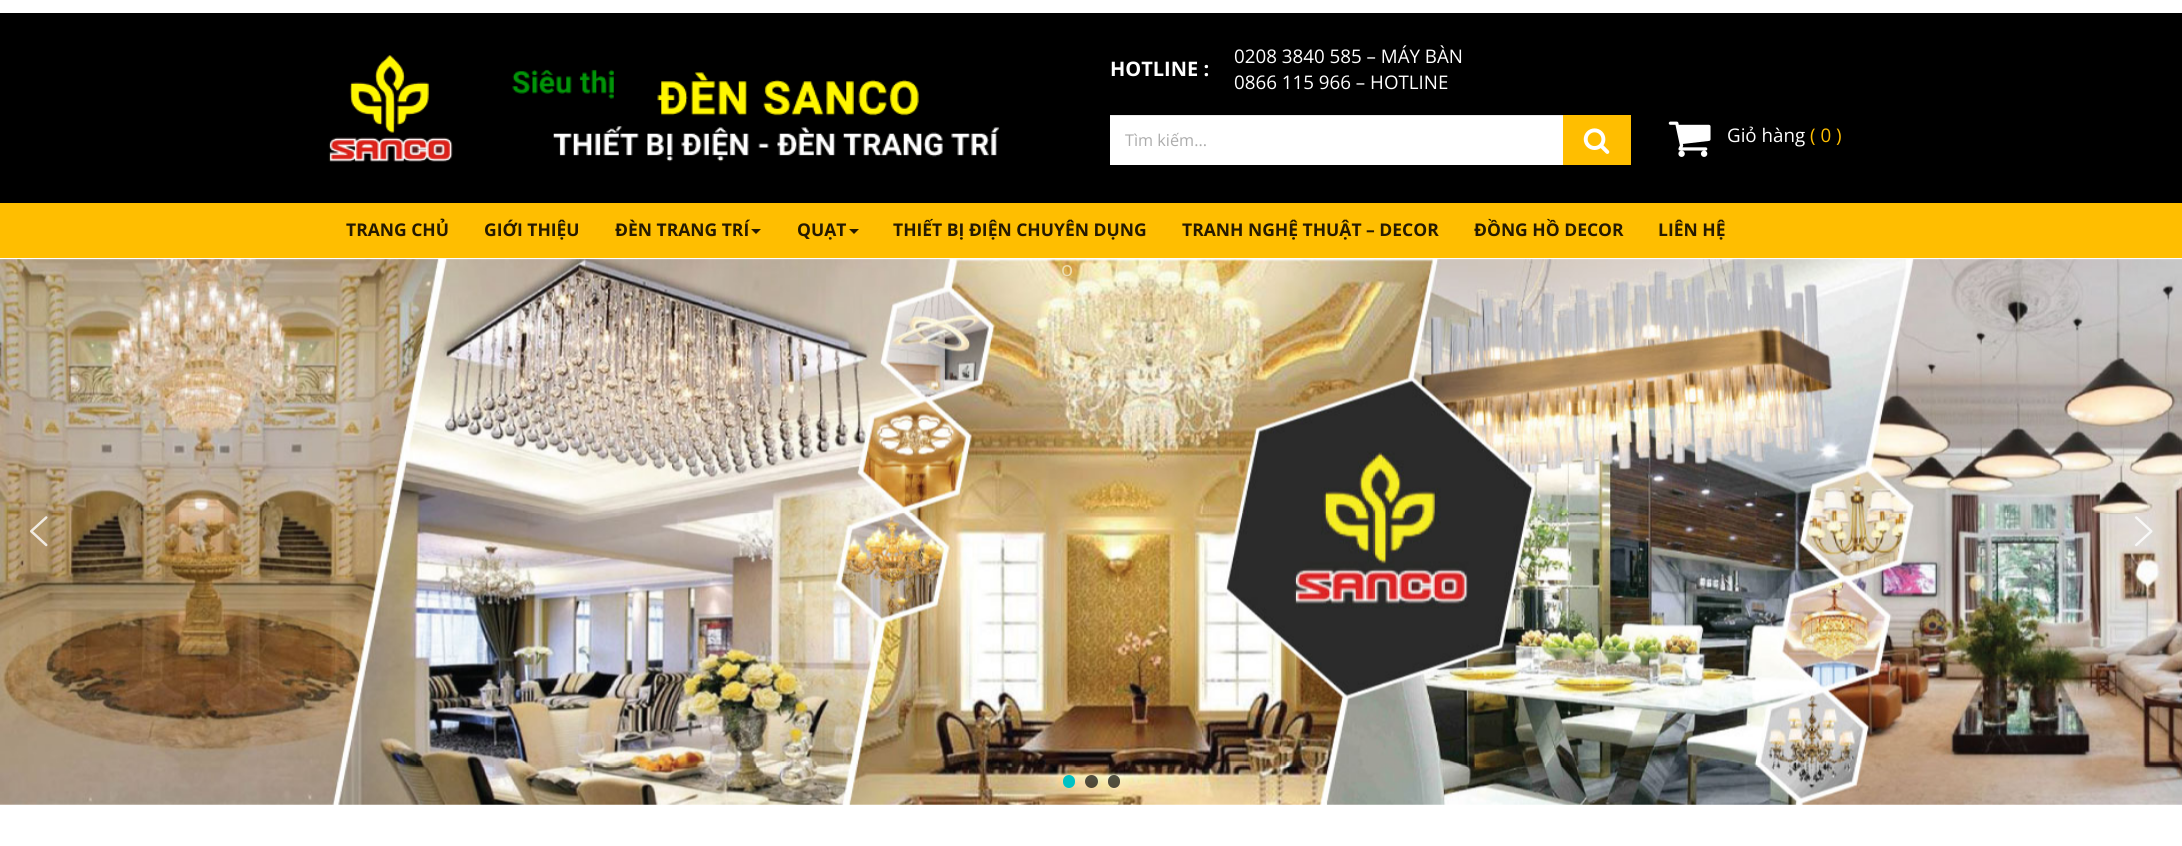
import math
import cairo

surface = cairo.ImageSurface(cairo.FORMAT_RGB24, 2182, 846)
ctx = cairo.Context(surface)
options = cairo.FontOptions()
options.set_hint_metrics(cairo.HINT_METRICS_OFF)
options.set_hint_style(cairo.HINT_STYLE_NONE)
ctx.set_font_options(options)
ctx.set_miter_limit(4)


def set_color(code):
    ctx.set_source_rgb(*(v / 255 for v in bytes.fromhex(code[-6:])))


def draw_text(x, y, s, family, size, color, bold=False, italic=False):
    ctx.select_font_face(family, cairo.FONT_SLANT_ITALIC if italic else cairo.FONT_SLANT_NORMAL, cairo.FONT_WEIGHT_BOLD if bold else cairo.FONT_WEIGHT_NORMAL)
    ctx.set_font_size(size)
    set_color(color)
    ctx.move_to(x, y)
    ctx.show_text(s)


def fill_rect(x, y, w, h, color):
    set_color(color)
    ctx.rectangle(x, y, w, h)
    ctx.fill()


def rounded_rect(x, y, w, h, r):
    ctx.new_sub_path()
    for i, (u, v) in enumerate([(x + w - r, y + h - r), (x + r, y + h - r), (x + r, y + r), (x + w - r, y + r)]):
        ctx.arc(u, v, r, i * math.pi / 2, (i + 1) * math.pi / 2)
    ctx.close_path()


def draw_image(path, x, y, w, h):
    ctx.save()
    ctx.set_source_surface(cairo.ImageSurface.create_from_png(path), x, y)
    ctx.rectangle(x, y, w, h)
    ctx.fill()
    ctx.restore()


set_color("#ffffff")
ctx.paint()
fill_rect(0, 13, 2182, 190, "#000000")
draw_image("assets/img1.png", 328, 55, 672, 107)
draw_text(1110, 76, "HOTLINE :", "Open Sans", 20, "#ffffff", bold=True)
draw_text(1234, 63, "0208 3840 585 – MÁY BÀN", "Open Sans", 18.75, "#ffffff")
draw_text(1234, 89, "0866 115 966 – HOTLINE", "Open Sans", 18.75, "#ffffff")
fill_rect(1110, 116, 453, 49, "#ffffff")
fill_rect(1110, 115, 453, 1, "#ececec")
draw_text(1125, 146, "Tìm kiếm...", "Open Sans", 16.25, "#acacac")
fill_rect(1563, 115, 68, 50, "#ffbe00")
draw_image("assets/img2.png", 1583, 128, 27, 26)
draw_image("assets/img3.png", 1668, 121, 43, 36)
draw_text(1727, 142, "Giỏ hàng", "Open Sans", 18.75, "#ffffff")
draw_text(1810, 142, "( 0 )", "Open Sans", 18.75, "#ffbe00")
fill_rect(0, 203, 2182, 55, "#ffbe00")
draw_text(346, 236, "TRANG CHỦ", "Open Sans", 17.5, "#261a00", bold=True)
draw_text(484, 236, "GIỚI THIỆU", "Open Sans", 17.5, "#261a00", bold=True)
draw_text(615, 236, "ĐÈN TRANG TRÍ", "Open Sans", 17.5, "#261a00", bold=True)
ctx.new_path()
ctx.move_to(751, 229)
ctx.line_to(761, 229)
ctx.line_to(756, 234)
ctx.close_path()
ctx.fill()
draw_text(797, 236, "QUẠT", "Open Sans", 17.5, "#261a00", bold=True)
ctx.new_path()
ctx.move_to(849, 229)
ctx.line_to(859, 229)
ctx.line_to(854, 234)
ctx.close_path()
ctx.fill()
draw_text(893, 236, "THIẾT BỊ ĐIỆN CHUYÊN DỤNG", "Open Sans", 17.5, "#261a00", bold=True)
draw_text(1182, 236, "TRANH NGHỆ THUẬT – DECOR", "Open Sans", 17.5, "#261a00", bold=True)
draw_text(1474, 236, "ĐỒNG HỒ DECOR", "Open Sans", 17.5, "#261a00", bold=True)
draw_text(1658, 236, "LIÊN HỆ", "Open Sans", 17.5, "#261a00", bold=True)
draw_image("assets/img4.png", 0, 259, 2182, 546)
draw_text(1061, 276, "o", "Open Sans", 20, "#eedfb2")
draw_image("assets/img5.png", 30, 516, 18, 31)
draw_image("assets/img6.png", 2135, 516, 18, 31)
set_color("#00c1c4")
rounded_rect(1063, 775, 12, 13, 6)
ctx.fill()
ctx.set_source_rgba(0, 0, 0, 0.67)
ctx.arc(1091.5, 781.5, 6.5, 0, 2 * math.pi)
ctx.fill()
rounded_rect(1108, 775, 12, 13, 6)
ctx.fill()
surface.write_to_png("output.png")
